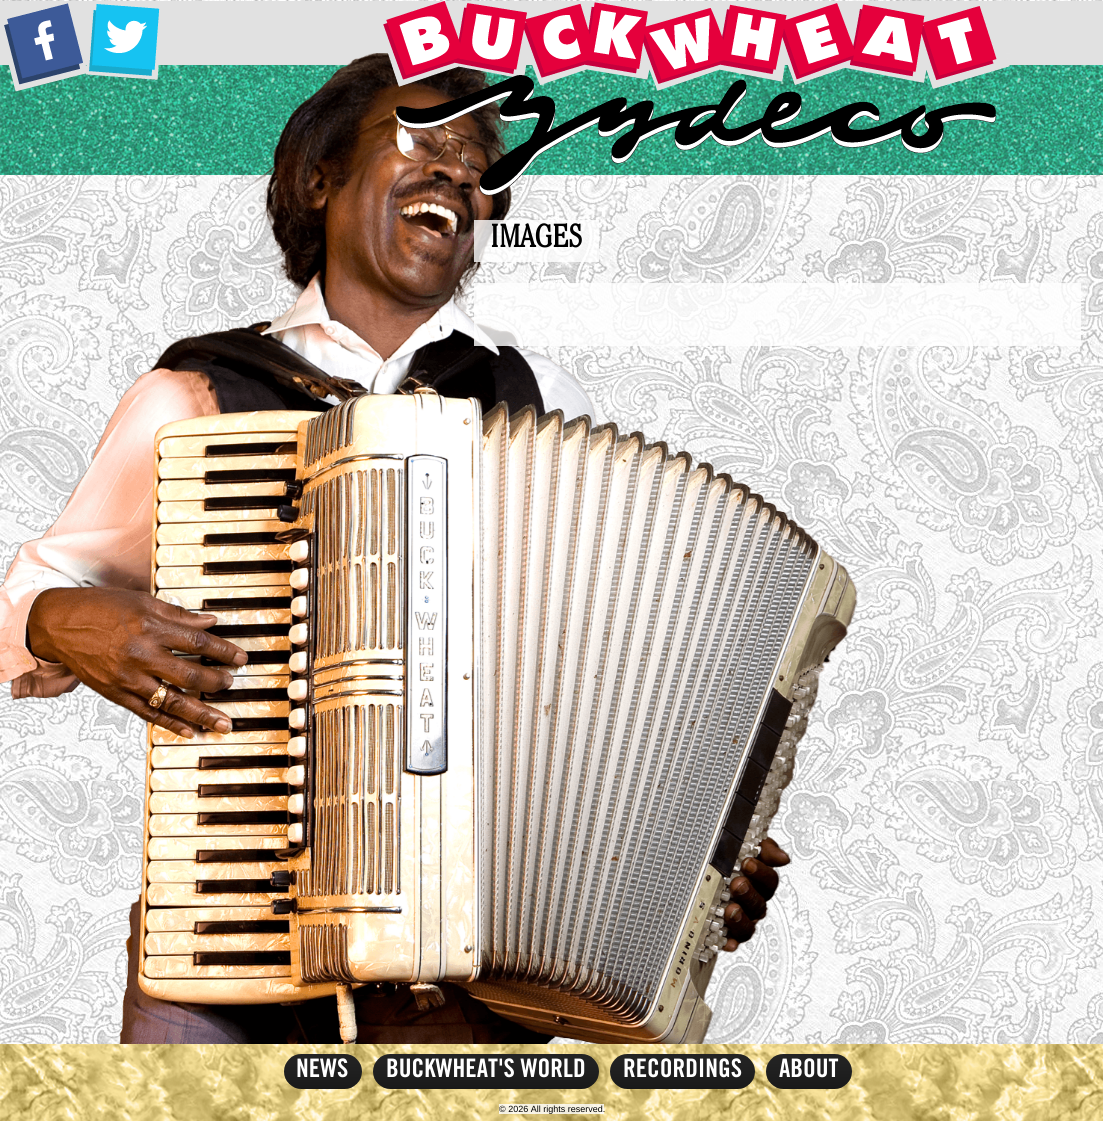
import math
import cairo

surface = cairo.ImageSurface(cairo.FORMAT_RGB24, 1103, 1121)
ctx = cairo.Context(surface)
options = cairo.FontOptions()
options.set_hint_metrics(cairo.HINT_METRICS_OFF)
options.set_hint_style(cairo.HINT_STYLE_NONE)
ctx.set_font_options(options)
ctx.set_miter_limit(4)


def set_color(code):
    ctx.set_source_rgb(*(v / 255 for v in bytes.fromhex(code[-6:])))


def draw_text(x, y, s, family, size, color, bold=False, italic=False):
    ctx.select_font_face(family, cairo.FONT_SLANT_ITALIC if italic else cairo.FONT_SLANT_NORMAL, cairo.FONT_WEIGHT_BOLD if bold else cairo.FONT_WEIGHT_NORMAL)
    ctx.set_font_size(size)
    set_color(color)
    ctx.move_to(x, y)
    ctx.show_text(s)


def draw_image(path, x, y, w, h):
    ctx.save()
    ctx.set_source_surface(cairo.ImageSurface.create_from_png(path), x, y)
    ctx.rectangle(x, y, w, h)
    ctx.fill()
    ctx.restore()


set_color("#ffffff")
ctx.paint()
draw_image("assets/img1.png", 0, 0, 1103, 1044)
draw_image("assets/img2.png", 0, 1, 1103, 174)
draw_image("assets/img3.png", 0, 53, 858, 991)
draw_image("assets/img4.png", 4, 3, 83, 89)
draw_image("assets/img5.png", 87, 4, 73, 76)
draw_image("assets/img6.png", 375, 1, 635, 195)
ctx.set_source_rgba(1, 1, 1, 0.8)
ctx.rectangle(474, 220, 125, 42)
ctx.fill()
draw_text(490, 247, "IMAGES", "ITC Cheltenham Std", 32, "#000000", bold=True)
ctx.set_source_rgba(1, 1, 1, 0.8)
ctx.rectangle(474, 283, 607, 63)
ctx.fill()
draw_image("assets/img7.png", 0, 1044, 1103, 77)
draw_image("assets/img8.png", 284, 1054, 78, 35)
draw_image("assets/img9.png", 373, 1054, 226, 35)
draw_image("assets/img10.png", 610, 1054, 145, 35)
draw_image("assets/img11.png", 766, 1054, 86, 35)
draw_text(296, 1077, "NEWS", "Trade Gothic", 25.5, "#ffffff", bold=True)
draw_text(386, 1077, "BUCKWHEAT'S WORLD", "Trade Gothic", 25.5, "#ffffff", bold=True)
draw_text(623, 1077, "RECORDINGS", "Trade Gothic", 25.5, "#ffffff", bold=True)
draw_text(779, 1077, "ABOUT", "Trade Gothic", 25.5, "#ffffff", bold=True)
ctx.set_source_rgba(1, 1, 1, 0.8)
ctx.rectangle(499, 1104, 105, 10)
ctx.fill()
draw_text(499, 1112, "© 2026 All rights reserved.", "Liberation Sans", 9, "#000000")
surface.write_to_png("output.png")
